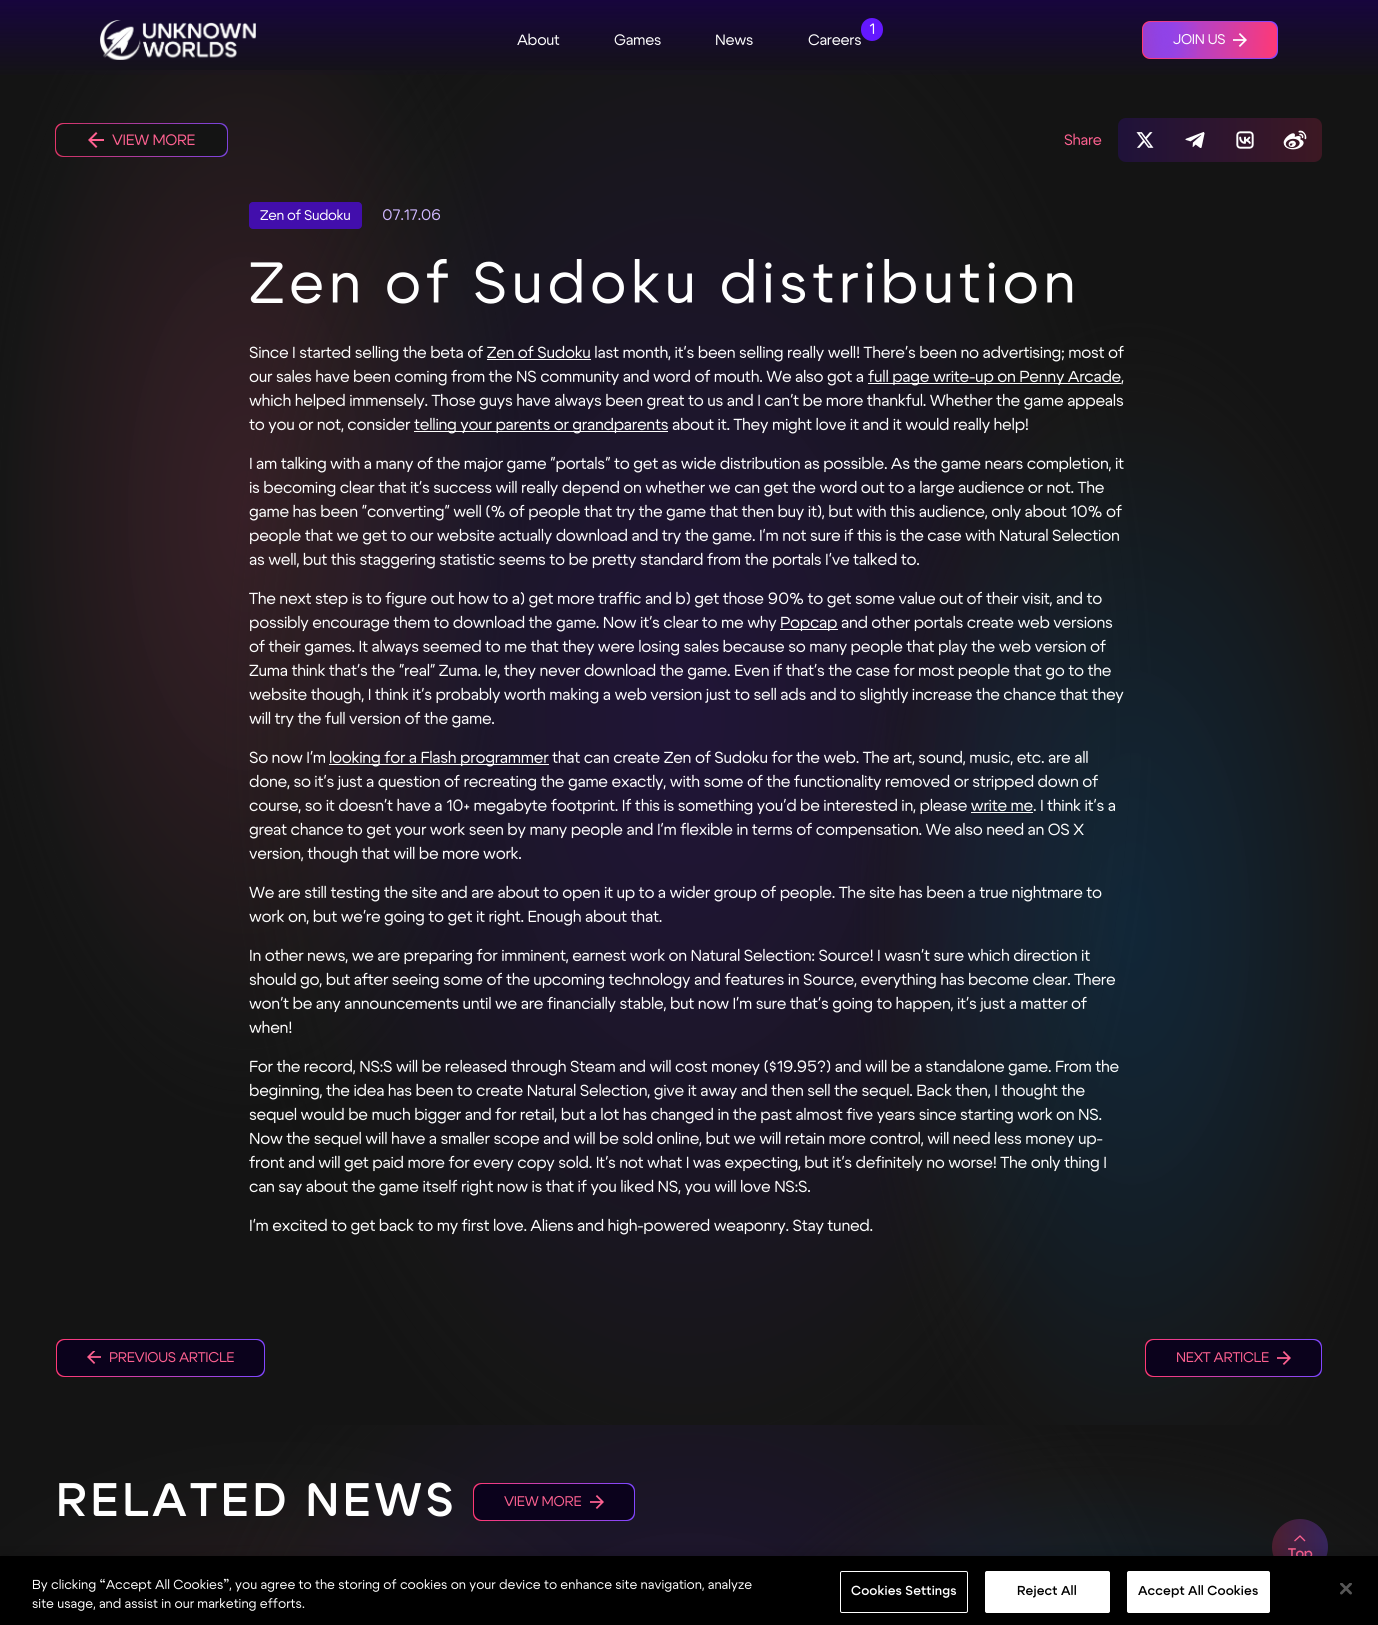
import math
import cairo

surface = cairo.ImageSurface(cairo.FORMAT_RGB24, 1378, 1625)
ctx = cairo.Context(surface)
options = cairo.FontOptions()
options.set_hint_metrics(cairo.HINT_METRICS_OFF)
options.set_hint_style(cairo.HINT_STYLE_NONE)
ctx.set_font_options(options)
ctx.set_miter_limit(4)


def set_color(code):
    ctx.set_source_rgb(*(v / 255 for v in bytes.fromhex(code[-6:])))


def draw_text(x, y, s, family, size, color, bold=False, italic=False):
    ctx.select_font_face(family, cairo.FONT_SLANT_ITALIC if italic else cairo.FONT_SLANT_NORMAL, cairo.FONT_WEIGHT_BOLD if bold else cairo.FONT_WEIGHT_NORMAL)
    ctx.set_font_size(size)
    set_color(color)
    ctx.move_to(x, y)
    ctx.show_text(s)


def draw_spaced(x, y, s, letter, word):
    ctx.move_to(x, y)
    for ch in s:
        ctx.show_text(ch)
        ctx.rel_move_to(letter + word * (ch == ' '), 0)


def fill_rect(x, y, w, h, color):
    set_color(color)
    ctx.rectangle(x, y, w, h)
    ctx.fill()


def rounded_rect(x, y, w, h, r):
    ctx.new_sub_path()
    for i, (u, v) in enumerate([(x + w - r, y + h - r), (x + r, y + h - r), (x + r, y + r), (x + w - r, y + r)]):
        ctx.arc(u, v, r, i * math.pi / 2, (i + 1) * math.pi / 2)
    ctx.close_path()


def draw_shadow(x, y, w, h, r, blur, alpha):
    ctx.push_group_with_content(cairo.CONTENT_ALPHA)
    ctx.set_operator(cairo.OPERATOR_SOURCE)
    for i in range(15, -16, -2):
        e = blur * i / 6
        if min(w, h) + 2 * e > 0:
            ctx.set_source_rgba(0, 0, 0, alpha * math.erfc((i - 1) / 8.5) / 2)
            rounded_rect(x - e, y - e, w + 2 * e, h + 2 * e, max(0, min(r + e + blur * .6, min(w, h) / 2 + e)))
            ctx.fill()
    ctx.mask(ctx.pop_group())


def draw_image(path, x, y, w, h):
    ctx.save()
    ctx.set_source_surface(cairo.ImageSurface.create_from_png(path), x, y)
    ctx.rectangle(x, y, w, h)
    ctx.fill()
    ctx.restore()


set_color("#141414")
ctx.paint()
gradient = cairo.LinearGradient(54, 146, 229, 134)
gradient.add_color_stop_rgba(0.02, 1, 0.224, 0.459, 1)
gradient.add_color_stop_rgba(0.95, 0.514, 0.275, 0.996, 1)
ctx.set_source(gradient)
rounded_rect(55, 123, 173, 34, 8)
ctx.fill()
ctx.save()
ctx.rectangle(0, 70, 1378, 1355)
ctx.clip()
gradient = cairo.RadialGradient(0, 0, 0, 0, 0, 1)
gradient.set_matrix(cairo.Matrix(1 / 403, 0, 0, 1 / 879, -1 * 246 / 403, -1 * 513 / 879))
gradient.add_color_stop_rgba(0, 1, 0.38, 0.569, 0.15)
gradient.add_color_stop_rgba(0.6, 0.125, 0.125, 0.125, 0.2)
gradient.add_color_stop_rgba(0.7, 0.125, 0.125, 0.125, 0)
ctx.set_source(gradient)
ctx.new_path()
ctx.move_to(246, -109)
ctx.curve_to(403.5, -109, 531, 169.5, 531, 513)
ctx.curve_to(531, 856.5, 403.5, 1135, 246, 1135)
ctx.curve_to(88.5, 1135, -39, 856.5, -39, 513)
ctx.curve_to(-39, 169.5, 88.5, -109, 246, -109)
ctx.close_path()
ctx.fill()
gradient = cairo.RadialGradient(0, 0, 0, 0, 0, 1)
gradient.set_matrix(cairo.Matrix(1 / 671, 0, 0, 1 / 1173, -1 * 689 / 671, -1 * 720 / 1173))
gradient.add_color_stop_rgba(0, 0.392, 0.094, 1, 0.15)
gradient.add_color_stop_rgba(0.6, 0.125, 0.125, 0.125, 0.2)
gradient.add_color_stop_rgba(0.7, 0.125, 0.125, 0.125, 0)
ctx.set_source(gradient)
ctx.new_path()
ctx.move_to(689, -109)
ctx.curve_to(951.5, -109, 1164, 262, 1164, 720)
ctx.curve_to(1164, 1178, 951.5, 1549, 689, 1549)
ctx.curve_to(426.5, 1549, 214, 1178, 214, 720)
ctx.curve_to(214, 262, 426.5, -109, 689, -109)
ctx.close_path()
ctx.fill()
ctx.restore()
gradient = cairo.LinearGradient(689, 0, 689, 80)
gradient.add_color_stop_rgba(0, 0.09, 0.02, 0.239, 1)
gradient.add_color_stop_rgba(1, 0.09, 0.02, 0.239, 0)
ctx.set_source(gradient)
ctx.rectangle(0, 0, 1378, 75)
ctx.fill()
draw_image("assets/img1.png", 100, 20, 156, 40)
ctx.select_font_face("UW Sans")
ctx.set_font_size(15)
set_color("#ffffff")
draw_spaced(517, 45, "About", -0.3, 0)
draw_spaced(614, 45, "Games", -0.3, 0)
draw_spaced(715, 45, "News", -0.3, 0)
set_color("#6418ff")
rounded_rect(861, 18, 22, 23, 11)
ctx.fill()
set_color("#ffffff")
draw_spaced(869, 34, "1", -0.3, 0)
draw_spaced(808, 45, "Careers", -0.3, 0)
gradient = cairo.LinearGradient(1141, 45, 1279, 35)
gradient.add_color_stop_rgba(0.02, 1, 0.224, 0.459, 1)
gradient.add_color_stop_rgba(0.95, 0.514, 0.275, 0.996, 1)
ctx.set_source(gradient)
rounded_rect(1142, 21, 136, 38, 8)
ctx.fill()
gradient = cairo.LinearGradient(1142, 34, 1278, 46)
gradient.add_color_stop_rgba(0, 0.514, 0.275, 0.996, 1)
gradient.add_color_stop_rgba(1, 1, 0.224, 0.459, 1)
ctx.set_source(gradient)
rounded_rect(1143, 22, 134, 36, 8)
ctx.fill()
draw_image("assets/img2.png", 1143, 22, 54, 36)
ctx.set_font_size(14)
set_color("#ffffff")
draw_spaced(1173, 44, "JOIN US", -0.3, 0)
draw_image("assets/img3.png", 1233, 33, 14, 14)
set_color("#141414")
rounded_rect(56, 124, 171, 32, 8)
ctx.fill()
draw_image("assets/img4.png", 88, 132, 16, 16)
ctx.set_font_size(15)
set_color("#ff6191")
draw_spaced(112, 145, "VIEW MORE", -0.3, 0)
draw_spaced(1064, 145, "Share", -0.3, 0)
gradient = cairo.LinearGradient(1118, 140, 1322, 140)
gradient.add_color_stop_rgba(0, 0.122, 0.071, 0.227, 1)
gradient.add_color_stop_rgba(1, 0.239, 0.094, 0.137, 1)
ctx.set_source(gradient)
rounded_rect(1118, 118, 204, 44, 8)
ctx.fill()
draw_image("assets/img5.png", 1136, 132, 18, 16)
draw_image("assets/img6.png", 1185, 132, 20, 16)
draw_image("assets/img7.png", 1236, 131, 18, 18)
draw_image("assets/img8.png", 1283, 130, 24, 20)
set_color("#420eac")
rounded_rect(249.5, 202.5, 112, 26, 3.5)
ctx.fill_preserve()
ctx.set_line_width(1)
ctx.stroke()
ctx.set_font_size(14)
set_color("#ffffff")
draw_spaced(260, 220, "Zen of Sudoku", -0.3, 0)
ctx.set_font_size(15)
set_color("#cfb8ff")
draw_spaced(382, 220, "07.17.06", -0.3, 0)
ctx.set_font_size(58)
set_color("#ffffff")
draw_spaced(249, 303, "Zen of Sudoku distribution", 4.65, 0)
ctx.save()
ctx.rectangle(0, 70, 1378, 1355)
ctx.clip()
gradient = cairo.RadialGradient(0, 0, 0, 0, 0, 1)
gradient.set_matrix(cairo.Matrix(1 / 403, 0, 0, 1 / 879, -1 * 1132 / 403, -1 * 928 / 879))
gradient.add_color_stop_rgba(0, 0, 0.553, 1, 0.15)
gradient.add_color_stop_rgba(0.6, 0.125, 0.125, 0.125, 0.2)
gradient.add_color_stop_rgba(0.7, 0.125, 0.125, 0.125, 0)
ctx.set_source(gradient)
ctx.new_path()
ctx.move_to(1132, 305.5)
ctx.curve_to(1289.5, 305.5, 1417, 584, 1417, 927.5)
ctx.curve_to(1417, 1271, 1289.5, 1549.5, 1132, 1549.5)
ctx.curve_to(974.5, 1549.5, 847, 1271, 847, 927.5)
ctx.curve_to(847, 584, 974.5, 305.5, 1132, 305.5)
ctx.close_path()
ctx.fill()
ctx.restore()
ctx.set_font_size(16)
draw_spaced(249, 358, "Since I started selling the beta of Zen of Sudoku last month, it's been selling really well! There's been no advertising; most of", -0.3, 0)
fill_rect(487, 359, 104, 1, "#ffffff")
draw_spaced(249, 382, "our sales have been coming from the NS community and word of mouth. We also got a", -0.3, 0)
fill_rect(868, 383, 253, 1, "#ffffff")
draw_spaced(868, 382, "full page write-up on Penny Arcade,", -0.3, 0)
draw_spaced(249, 406, "which helped immensely. Those guys have always been great to us and I can't be more thankful. Whether the game appeals", -0.3, 0)
draw_spaced(249, 430, "to you or not, consider", -0.3, 0)
fill_rect(414, 431, 254, 1, "#ffffff")
draw_spaced(414, 430, "telling your parents or grandparents about it. They might love it and it would really help!", -0.3, 0)
draw_spaced(249, 469, "I am talking with a many of the major game \"portals\" to get as wide distribution as possible. As the game nears completion, it", -0.3, 0)
draw_spaced(249, 493, "is becoming clear that it's success will really depend on whether we can get the word out to a large audience or not. The", -0.3, 0)
draw_spaced(249, 517, "game has been \"converting\" well (% of people that try the game that then buy it), but with this audience, only about 10% of", -0.3, 0)
draw_spaced(249, 541, "people that we get to our website actually download and try the game. I'm not sure if this is the case with Natural Selection", -0.3, 0)
draw_spaced(249, 565, "as well, but this staggering statistic seems to be pretty standard from the portals I've talked to.", -0.3, 0)
draw_spaced(249, 604, "The next step is to figure out how to a) get more traffic and b) get those 90% to get some value out of their visit, and to", -0.3, 0)
draw_spaced(249, 628, "possibly encourage them to download the game. Now it's clear to me why", -0.3, 0)
fill_rect(780, 629, 58, 1, "#ffffff")
draw_spaced(780, 628, "Popcap and other portals create web versions", -0.3, 0)
draw_spaced(249, 652, "of their games. It always seemed to me that they were losing sales because so many people that play the web version of", -0.3, 0)
draw_spaced(249, 676, "Zuma think that's the \"real\" Zuma. Ie, they never download the game. Even if that's the case for most people that go to the", -0.3, 0)
draw_spaced(249, 700, "website though, I think it's probably worth making a web version just to sell ads and to slightly increase the chance that they", -0.3, 0)
draw_spaced(249, 724, "will try the full version of the game.", -0.3, 0)
draw_spaced(249, 763, "So now I'm", -0.3, 0)
fill_rect(329, 764, 220, 1, "#ffffff")
draw_spaced(329, 763, "looking for a Flash programmer that can create Zen of Sudoku for the web. The art, sound, music, etc. are all", -0.3, 0)
draw_spaced(249, 787, "done, so it's just a question of recreating the game exactly, with some of the functionality removed or stripped down of", -0.3, 0)
draw_spaced(249, 811, "course, so it doesn't have a 10+ megabyte footprint. If this is something you'd be interested in, please write me. I think it's a", -0.3, 0)
fill_rect(971, 812, 62, 1, "#ffffff")
draw_spaced(249, 835, "great chance to get your work seen by many people and I'm flexible in terms of compensation. We also need an OS X", -0.3, 0)
draw_spaced(249, 859, "version, though that will be more work.", -0.3, 0)
draw_spaced(249, 898, "We are still testing the site and are about to open it up to a wider group of people. The site has been a true nightmare to", -0.3, 0)
draw_spaced(249, 922, "work on, but we're going to get it right. Enough about that.", -0.3, 0)
draw_spaced(249, 961, "In other news, we are preparing for imminent, earnest work on Natural Selection: Source! I wasn't sure which direction it", -0.3, 0)
draw_spaced(249, 985, "should go, but after seeing some of the upcoming technology and features in Source, everything has become clear. There", -0.3, 0)
draw_spaced(249, 1009, "won't be any announcements until we are financially stable, but now I'm sure that's going to happen, it's just a matter of", -0.3, 0)
draw_spaced(249, 1033, "when!", -0.3, 0)
draw_spaced(249, 1072, "For the record, NS:S will be released through Steam and will cost money ($19.95?) and will be a standalone game. From the", -0.3, 0)
draw_spaced(249, 1096, "beginning, the idea has been to create Natural Selection, give it away and then sell the sequel. Back then, I thought the", -0.3, 0)
draw_spaced(249, 1120, "sequel would be much bigger and for retail, but a lot has changed in the past almost five years since starting work on NS.", -0.3, 0)
draw_spaced(249, 1144, "Now the sequel will have a smaller scope and will be sold online, but we will retain more control, will need less money up-", -0.3, 0)
draw_spaced(249, 1168, "front and will get paid more for every copy sold. It's not what I was expecting, but it's definitely no worse! The only thing I", -0.3, 0)
draw_spaced(249, 1192, "can say about the game itself right now is that if you liked NS, you will love NS:S.", -0.3, 0)
draw_spaced(249, 1231, "I'm excited to get back to my first love. Aliens and high-powered weaponry. Stay tuned.", -0.3, 0)
gradient = cairo.LinearGradient(55, 1366, 266, 1350)
gradient.add_color_stop_rgba(0.02, 1, 0.224, 0.459, 1)
gradient.add_color_stop_rgba(0.95, 0.514, 0.275, 0.996, 1)
ctx.set_source(gradient)
rounded_rect(56, 1339, 209, 38, 8)
ctx.fill()
set_color("#0b021c")
rounded_rect(57, 1340, 207, 36, 8)
ctx.fill()
gradient = cairo.LinearGradient(1144, 1365, 1323, 1351)
gradient.add_color_stop_rgba(0.02, 1, 0.224, 0.459, 1)
gradient.add_color_stop_rgba(0.95, 0.514, 0.275, 0.996, 1)
ctx.set_source(gradient)
rounded_rect(1145, 1339, 177, 38, 8)
ctx.fill()
set_color("#0b021c")
rounded_rect(1146, 1340, 175, 36, 8)
ctx.fill()
ctx.save()
ctx.rectangle(0, 1425, 1378, 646)
ctx.clip()
gradient = cairo.RadialGradient(0, 0, 0, 0, 0, 1)
gradient.set_matrix(cairo.Matrix(1 / 585, 0, 0, 1 / 457, -1 * 276 / 585, -1 * 1748 / 457))
gradient.add_color_stop_rgba(0, 0.216, 0.125, 0.153, 1)
gradient.add_color_stop_rgba(0.6, 0.086, 0.086, 0.086, 1)
gradient.add_color_stop_rgba(0.7, 0.078, 0.078, 0.078, 1)
ctx.set_source(gradient)
ctx.new_path()
ctx.move_to(275.5, 1424.5)
ctx.curve_to(504, 1424.5, 689, 1569, 689, 1747.5)
ctx.curve_to(689, 1926, 504, 2070.5, 275.5, 2070.5)
ctx.curve_to(47, 2070.5, -138, 1926, -138, 1747.5)
ctx.curve_to(-138, 1569, 47, 1424.5, 275.5, 1424.5)
ctx.close_path()
ctx.fill()
gradient = cairo.RadialGradient(689, 1748, 0, 689, 1748, 731)
gradient.add_color_stop_rgba(0, 0.392, 0.094, 1, 0.15)
gradient.add_color_stop_rgba(0.6, 0.125, 0.125, 0.125, 0.2)
gradient.add_color_stop_rgba(0.7, 0.125, 0.125, 0.125, 0)
ctx.set_source(gradient)
rounded_rect(172, 1231, 1034, 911, 517)
ctx.fill()
ctx.restore()
gradient = cairo.RadialGradient(0, 0, 0, 0, 0, 1)
gradient.set_matrix(cairo.Matrix(1 / 585, 0, 0, 1 / 457, -1 * 1102 / 585, -1 * 1748 / 457))
gradient.add_color_stop_rgba(0, 0, 0.553, 1, 0.15)
gradient.add_color_stop_rgba(0.6, 0.125, 0.125, 0.125, 0.2)
gradient.add_color_stop_rgba(0.7, 0.125, 0.125, 0.125, 0)
ctx.set_source(gradient)
ctx.new_path()
ctx.move_to(1102.5, 1424.5)
ctx.curve_to(1331, 1424.5, 1516, 1569, 1516, 1747.5)
ctx.curve_to(1516, 1926, 1331, 2070.5, 1102.5, 2070.5)
ctx.curve_to(874, 2070.5, 689, 1926, 689, 1747.5)
ctx.curve_to(689, 1569, 874, 1424.5, 1102.5, 1424.5)
ctx.close_path()
ctx.fill()
gradient = cairo.LinearGradient(1270, 1549, 1330, 1545)
gradient.add_color_stop_rgba(0.02, 0.812, 0.18, 0.373, 0.3)
gradient.add_color_stop_rgba(0.95, 0.514, 0.275, 0.996, 0.3)
ctx.set_source(gradient)
ctx.arc(1300, 1547, 28, 0, 2 * math.pi)
ctx.fill()
ctx.new_path()
ctx.move_to(1305, 1541)
ctx.line_to(1300, 1536)
ctx.line_to(1294.5, 1541)
set_color("#ff6191")
ctx.set_line_width(1.3)
ctx.stroke()
ctx.select_font_face("UW Sans SemiBold")
ctx.set_font_size(14)
draw_spaced(1288, 1558, "Top", -0.5, 0)
draw_image("assets/img9.png", 87, 1351, 14, 13)
ctx.select_font_face("UW Sans")
draw_spaced(109, 1362, "PREVIOUS ARTICLE", -0.3, 0)
draw_spaced(1176, 1362, "NEXT ARTICLE", -0.3, 0)
draw_image("assets/img10.png", 1277, 1351, 14, 14)
ctx.select_font_face("UW Sans SemiBold")
ctx.set_font_size(47)
set_color("#ffffff")
draw_spaced(56, 1516, "RELATED NEWS", 3.75, 0)
gradient = cairo.LinearGradient(472, 1508, 636, 1496)
gradient.add_color_stop_rgba(0.02, 1, 0.224, 0.459, 1)
gradient.add_color_stop_rgba(0.95, 0.514, 0.275, 0.996, 1)
ctx.set_source(gradient)
rounded_rect(473, 1483, 162, 38, 8)
ctx.fill()
set_color("#0b021c")
rounded_rect(474, 1484, 160, 36, 8)
ctx.fill()
ctx.select_font_face("UW Sans")
ctx.set_font_size(14)
set_color("#ff6191")
draw_spaced(504, 1506, "VIEW MORE", -0.3, 0)
draw_image("assets/img10.png", 590, 1495, 14, 14)
set_color("#000000")
draw_shadow(0, 1556, 1378, 69, 0, 9, 0.2)
fill_rect(0, 1556, 1378, 69, "#000000")
draw_text(32, 1589, "By clicking “Accept All Cookies”, you agree to the storing of cookies on your device to enhance site navigation, analyze", "UW Sans", 13, "#ffffff")
draw_text(32, 1608, "site usage, and assist in our marketing efforts.", "UW Sans", 13, "#ffffff")
rounded_rect(840.5, 1571.5, 127, 41, 1.5)
ctx.set_line_width(1)
ctx.stroke()
ctx.select_font_face("UW Sans SemiBold")
draw_spaced(851, 1595, "Cookies Settings", 0.1, 0)
rounded_rect(985.5, 1571.5, 124, 41, 1.5)
ctx.fill_preserve()
ctx.stroke()
set_color("#000000")
draw_spaced(1017, 1595, "Reject All", 0.1, 0)
set_color("#ffffff")
rounded_rect(1127.5, 1571.5, 142, 41, 1.5)
ctx.fill_preserve()
ctx.stroke()
set_color("#000000")
draw_spaced(1138, 1595, "Accept All Cookies", 0.1, 0)
draw_image("assets/img11.png", 1340, 1583, 12, 12)
surface.write_to_png("output.png")
